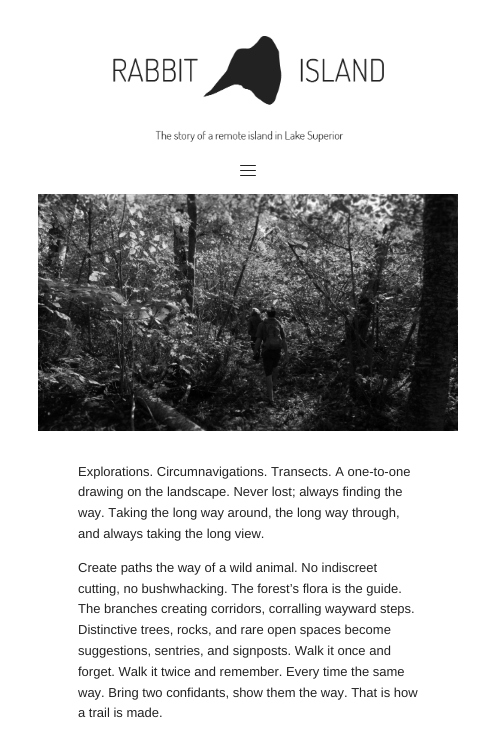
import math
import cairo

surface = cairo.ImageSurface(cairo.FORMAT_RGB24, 496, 738)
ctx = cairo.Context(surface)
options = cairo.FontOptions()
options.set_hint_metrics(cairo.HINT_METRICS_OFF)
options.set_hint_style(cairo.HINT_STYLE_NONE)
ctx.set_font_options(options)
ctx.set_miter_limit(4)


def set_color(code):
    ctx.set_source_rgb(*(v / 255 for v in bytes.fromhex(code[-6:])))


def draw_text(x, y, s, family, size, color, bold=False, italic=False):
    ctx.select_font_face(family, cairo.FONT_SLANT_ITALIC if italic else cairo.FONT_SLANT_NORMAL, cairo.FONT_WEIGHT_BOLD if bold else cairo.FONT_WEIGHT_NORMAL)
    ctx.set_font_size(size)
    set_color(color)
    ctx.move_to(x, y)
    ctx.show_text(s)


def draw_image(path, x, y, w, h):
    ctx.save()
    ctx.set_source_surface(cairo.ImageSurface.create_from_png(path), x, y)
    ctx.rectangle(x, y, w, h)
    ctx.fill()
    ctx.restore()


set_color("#ffffff")
ctx.paint()
draw_image("assets/img1.png", 113, 36, 271, 106)
draw_image("assets/img2.png", 240, 165, 16, 11)
draw_image("assets/img3.png", 38, 194, 420, 237)
draw_text(78, 476, "Explorations. Circumnavigations. Transects. A one-to-one", "Liberation Sans", 13, "#222222")
draw_text(78, 496, "drawing on the landscape. Never lost; always finding the", "Liberation Sans", 13, "#222222")
draw_text(78, 517, "way. Taking the long way around, the long way through,", "Liberation Sans", 13, "#222222")
draw_text(78, 538, "and always taking the long view.", "Liberation Sans", 13, "#222222")
draw_text(78, 572, "Create paths the way of a wild animal. No indiscreet", "Liberation Sans", 13, "#222222")
draw_text(78, 593, "cutting, no bushwhacking. The forest’s flora is the guide.", "Liberation Sans", 13, "#222222")
draw_text(78, 613, "The branches creating corridors, corralling wayward steps.", "Liberation Sans", 13, "#222222")
draw_text(78, 634, "Distinctive trees, rocks, and rare open spaces become", "Liberation Sans", 13, "#222222")
draw_text(78, 655, "suggestions, sentries, and signposts. Walk it once and", "Liberation Sans", 13, "#222222")
draw_text(78, 676, "forget. Walk it twice and remember. Every time the same", "Liberation Sans", 13, "#222222")
draw_text(78, 697, "way. Bring two confidants, show them the way. That is how", "Liberation Sans", 13, "#222222")
draw_text(78, 717, "a trail is made.", "Liberation Sans", 13, "#222222")
surface.write_to_png("output.png")
